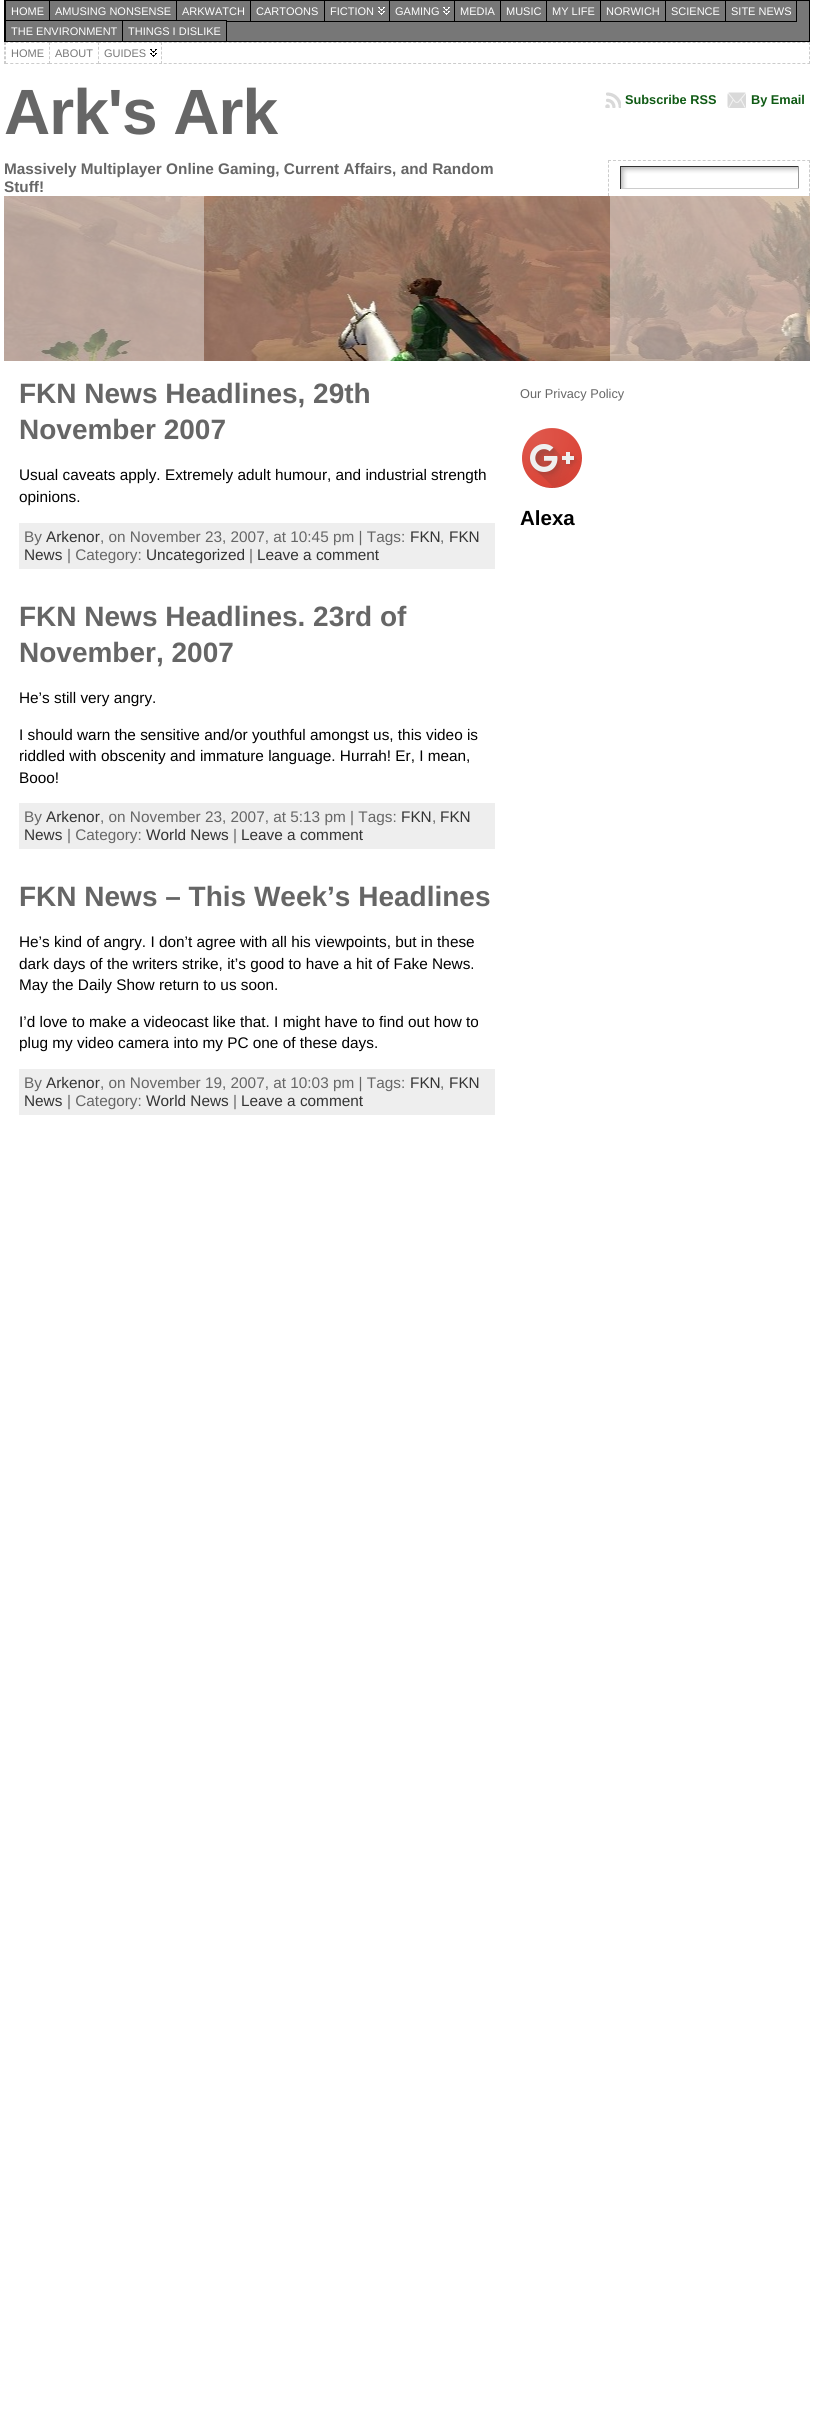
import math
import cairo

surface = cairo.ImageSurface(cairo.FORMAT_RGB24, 814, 2411)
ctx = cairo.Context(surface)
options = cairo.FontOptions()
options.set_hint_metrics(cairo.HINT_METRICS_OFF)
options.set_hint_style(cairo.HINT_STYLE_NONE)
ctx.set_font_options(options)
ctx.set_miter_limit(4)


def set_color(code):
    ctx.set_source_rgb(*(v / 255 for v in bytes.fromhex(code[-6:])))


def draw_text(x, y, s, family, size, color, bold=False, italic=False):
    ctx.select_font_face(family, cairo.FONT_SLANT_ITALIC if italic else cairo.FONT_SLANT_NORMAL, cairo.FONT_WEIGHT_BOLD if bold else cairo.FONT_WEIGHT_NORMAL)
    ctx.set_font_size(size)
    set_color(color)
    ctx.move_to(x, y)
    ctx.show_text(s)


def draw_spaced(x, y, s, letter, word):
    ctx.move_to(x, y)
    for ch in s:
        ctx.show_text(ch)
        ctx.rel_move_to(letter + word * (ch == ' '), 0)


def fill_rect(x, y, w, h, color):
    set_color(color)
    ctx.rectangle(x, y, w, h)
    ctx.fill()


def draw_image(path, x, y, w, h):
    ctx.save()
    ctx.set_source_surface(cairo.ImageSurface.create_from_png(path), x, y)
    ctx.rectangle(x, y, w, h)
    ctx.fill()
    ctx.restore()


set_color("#ffffff")
ctx.paint()
fill_rect(227, 1, 582, 40, "#777777")
ctx.rectangle(4.5, 0.5, 805, 41)
set_color("#000000")
ctx.set_line_width(1)
ctx.stroke()
fill_rect(6, 1, 43, 19, "#777777")
ctx.rectangle(5.5, 0.5, 44, 21)
set_color("#000000")
ctx.stroke()
draw_text(11, 15, "HOME", "Liberation Sans", 11, "#ffffff")
fill_rect(50, 1, 126, 19, "#777777")
ctx.rectangle(49.5, 0.5, 127, 21)
set_color("#000000")
ctx.stroke()
draw_text(55, 15, "AMUSING NONSENSE", "Liberation Sans", 11, "#ffffff")
fill_rect(177, 1, 50, 20, "#777777")
ctx.rectangle(176.5, 0.5, 74, 21)
set_color("#000000")
ctx.stroke()
draw_text(182, 15, "ARKWATCH", "Liberation Sans", 11, "#ffffff")
ctx.rectangle(250.5, 0.5, 74, 21)
set_color("#000000")
ctx.stroke()
draw_text(256, 15, "CARTOONS", "Liberation Sans", 11, "#ffffff")
draw_image("assets/img1.png", 378, 7, 7, 8)
ctx.rectangle(324.5, 0.5, 65, 21)
set_color("#000000")
ctx.stroke()
draw_text(330, 15, "FICTION", "Liberation Sans", 11, "#ffffff")
draw_image("assets/img1.png", 443, 7, 7, 8)
ctx.rectangle(389.5, 0.5, 65, 21)
set_color("#000000")
ctx.stroke()
draw_text(395, 15, "GAMING", "Liberation Sans", 11, "#ffffff")
ctx.rectangle(454.5, 0.5, 46, 21)
set_color("#000000")
ctx.stroke()
draw_text(460, 15, "MEDIA", "Liberation Sans", 11, "#ffffff")
ctx.rectangle(500.5, 0.5, 46, 21)
set_color("#000000")
ctx.stroke()
draw_text(506, 15, "MUSIC", "Liberation Sans", 11, "#ffffff")
ctx.rectangle(546.5, 0.5, 54, 21)
set_color("#000000")
ctx.stroke()
draw_text(552, 15, "MY LIFE", "Liberation Sans", 11, "#ffffff")
ctx.rectangle(600.5, 0.5, 65, 21)
set_color("#000000")
ctx.stroke()
draw_text(606, 15, "NORWICH", "Liberation Sans", 11, "#ffffff")
ctx.rectangle(665.5, 0.5, 60, 21)
set_color("#000000")
ctx.stroke()
draw_text(671, 15, "SCIENCE", "Liberation Sans", 11, "#ffffff")
ctx.rectangle(725.5, 0.5, 71, 21)
set_color("#000000")
ctx.stroke()
draw_text(731, 15, "SITE NEWS", "Liberation Sans", 11, "#ffffff")
set_color("#777777")
ctx.rectangle(5.5, 20.5, 117, 21)
ctx.fill_preserve()
set_color("#000000")
ctx.stroke()
draw_text(11, 35, "THE ENVIRONMENT", "Liberation Sans", 11, "#ffffff")
set_color("#777777")
ctx.rectangle(122.5, 20.5, 104, 21)
ctx.fill_preserve()
set_color("#000000")
ctx.stroke()
draw_text(128, 35, "THINGS I DISLIKE", "Liberation Sans", 11, "#ffffff")
ctx.new_path()
ctx.move_to(4, 42.5)
ctx.line_to(810, 42.5)
set_color("#cccccc")
ctx.set_dash([3, 1.99])
ctx.stroke()
ctx.new_path()
ctx.move_to(809.5, 42)
ctx.line_to(809.5, 64)
ctx.set_dash([3, 1.75])
ctx.stroke()
ctx.new_path()
ctx.move_to(4, 63.5)
ctx.line_to(810, 63.5)
ctx.set_dash([3, 1.99])
ctx.stroke()
ctx.new_path()
ctx.move_to(4.5, 42)
ctx.line_to(4.5, 64)
ctx.set_dash([3, 1.75])
ctx.stroke()
fill_rect(5, 42, 44, 22, "#ffffff")
ctx.new_path()
ctx.move_to(5, 42.5)
ctx.line_to(50, 42.5)
ctx.move_to(5, 63.5)
ctx.line_to(50, 63.5)
set_color("#cccccc")
ctx.set_dash([3, 2.25])
ctx.stroke()
ctx.new_path()
ctx.move_to(5.5, 42)
ctx.line_to(5.5, 64)
ctx.set_dash([3, 1.75])
ctx.stroke()
draw_text(11, 57, "HOME", "Liberation Sans", 11, "#777777")
fill_rect(49, 42, 48, 22, "#ffffff")
ctx.new_path()
ctx.move_to(49, 42.5)
ctx.line_to(99, 42.5)
ctx.move_to(49, 63.5)
ctx.line_to(99, 63.5)
set_color("#cccccc")
ctx.set_dash([3, 2.22])
ctx.stroke()
ctx.new_path()
ctx.move_to(49.5, 42)
ctx.line_to(49.5, 64)
ctx.set_dash([3, 1.75])
ctx.stroke()
draw_text(55, 57, "ABOUT", "Liberation Sans", 11, "#777777")
fill_rect(98, 42, 64, 22, "#ffffff")
draw_image("assets/img2.png", 150, 49, 7, 8)
ctx.new_path()
ctx.move_to(98, 42.5)
ctx.line_to(162, 42.5)
set_color("#cccccc")
ctx.set_dash([3, 2.08])
ctx.stroke()
ctx.new_path()
ctx.move_to(161.5, 42)
ctx.line_to(161.5, 64)
ctx.set_dash([3, 1.75])
ctx.stroke()
ctx.new_path()
ctx.move_to(98, 63.5)
ctx.line_to(162, 63.5)
ctx.set_dash([3, 2.08])
ctx.stroke()
ctx.new_path()
ctx.move_to(98.5, 42)
ctx.line_to(98.5, 64)
ctx.set_dash([3, 1.75])
ctx.stroke()
draw_text(104, 57, "GUIDES", "Liberation Sans", 11, "#777777")
ctx.select_font_face("Liberation Sans", cairo.FONT_SLANT_NORMAL, cairo.FONT_WEIGHT_BOLD)
ctx.set_font_size(64)
set_color("#666666")
draw_spaced(4, 134, "Ark's Ark", -1, 0)
draw_text(4, 174, "Massively Multiplayer Online Gaming, Current Affairs, and Random", "Liberation Sans", 15.35, "#666666", bold=True)
draw_text(4, 192, "Stuff!", "Liberation Sans", 15.35, "#666666", bold=True)
draw_image("assets/img3.png", 605, 92, 16, 16)
draw_text(625, 104, "Subscribe RSS", "Liberation Sans", 12.75, "#0f5a14", bold=True)
draw_image("assets/img4.png", 727, 92, 19, 16)
draw_text(751, 104, "By Email", "Liberation Sans", 12.75, "#0f5a14", bold=True)
ctx.new_path()
ctx.move_to(608, 160.5)
ctx.line_to(810, 160.5)
set_color("#cccccc")
ctx.set_dash([3, 1.98])
ctx.stroke()
ctx.new_path()
ctx.move_to(809.5, 160)
ctx.line_to(809.5, 196)
ctx.set_dash([3, 1.71])
ctx.stroke()
ctx.new_path()
ctx.move_to(608.5, 160)
ctx.line_to(608.5, 196)
ctx.stroke()
draw_image("assets/img5.png", 621, 167, 177, 21)
fill_rect(620, 166, 179, 1, "#333333")
fill_rect(798, 166, 1, 23, "#999999")
fill_rect(620, 188, 179, 1, "#cccccc")
fill_rect(620, 166, 1, 23, "#333333")
draw_image("assets/img6.png", 4, 196, 806, 165)
ctx.set_source_rgba(1, 1, 1, 0.4)
ctx.rectangle(4, 196, 200, 165)
ctx.fill()
ctx.rectangle(610, 196, 200, 165)
ctx.fill()
draw_text(19, 403, "FKN News Headlines, 29th", "Liberation Sans", 28, "#666666", bold=True)
draw_text(19, 439, "November 2007", "Liberation Sans", 28, "#666666", bold=True)
draw_text(19, 480, "Usual caveats apply. Extremely adult humour, and industrial strength", "Liberation Sans", 15.35, "#000000")
draw_text(19, 502, "opinions.", "Liberation Sans", 15.35, "#000000")
fill_rect(19, 523, 476, 46, "#eeeeee")
draw_text(24, 542, "By", "Liberation Sans", 15.35, "#666666")
draw_text(46, 542, "Arkenor", "Liberation Sans", 15.35, "#333333")
draw_text(100, 542, ", on November 23, 2007, at 10:45 pm | Tags:", "Liberation Sans", 15.35, "#666666")
draw_text(410, 542, "FKN", "Liberation Sans", 15.35, "#333333")
draw_text(440, 542, ",", "Liberation Sans", 15.35, "#666666")
draw_text(449, 542, "FKN", "Liberation Sans", 15.35, "#333333")
draw_text(24, 560, "News", "Liberation Sans", 15.35, "#333333")
draw_text(67, 560, "| Category:", "Liberation Sans", 15.35, "#666666")
draw_text(146, 560, "Uncategorized", "Liberation Sans", 15.35, "#333333")
draw_text(249, 560, "|", "Liberation Sans", 15.35, "#666666")
draw_text(257, 560, "Leave a comment", "Liberation Sans", 15.35, "#333333")
draw_text(19, 626, "FKN News Headlines. 23rd of", "Liberation Sans", 28, "#666666", bold=True)
draw_text(19, 662, "November, 2007", "Liberation Sans", 28, "#666666", bold=True)
draw_text(19, 703, "He’s still very angry.", "Liberation Sans", 15.35, "#000000")
draw_text(19, 740, "I should warn the sensitive and/or youthful amongst us, this video is", "Liberation Sans", 15.35, "#000000")
draw_text(19, 761, "riddled with obscenity and immature language. Hurrah! Er, I mean,", "Liberation Sans", 15.35, "#000000")
draw_text(19, 783, "Booo!", "Liberation Sans", 15.35, "#000000")
fill_rect(19, 803, 476, 46, "#eeeeee")
draw_text(24, 822, "By", "Liberation Sans", 15.35, "#666666")
draw_text(46, 822, "Arkenor", "Liberation Sans", 15.35, "#333333")
draw_text(100, 822, ", on November 23, 2007, at 5:13 pm | Tags:", "Liberation Sans", 15.35, "#666666")
draw_text(401, 822, "FKN", "Liberation Sans", 15.35, "#333333")
draw_text(432, 822, ",", "Liberation Sans", 15.35, "#666666")
draw_text(440, 822, "FKN", "Liberation Sans", 15.35, "#333333")
draw_text(24, 840, "News", "Liberation Sans", 15.35, "#333333")
draw_text(67, 840, "| Category:", "Liberation Sans", 15.35, "#666666")
draw_text(146, 840, "World News", "Liberation Sans", 15.35, "#333333")
draw_text(233, 840, "|", "Liberation Sans", 15.35, "#666666")
draw_text(241, 840, "Leave a comment", "Liberation Sans", 15.35, "#333333")
draw_text(19, 906, "FKN News – This Week’s Headlines", "Liberation Sans", 28, "#666666", bold=True)
draw_text(19, 947, "He’s kind of angry. I don’t agree with all his viewpoints, but in these", "Liberation Sans", 15.35, "#000000")
draw_text(19, 969, "dark days of the writers strike, it’s good to have a hit of Fake News.", "Liberation Sans", 15.35, "#000000")
draw_text(19, 990, "May the Daily Show return to us soon.", "Liberation Sans", 15.35, "#000000")
draw_text(19, 1027, "I’d love to make a videocast like that. I might have to find out how to", "Liberation Sans", 15.35, "#000000")
draw_text(19, 1048, "plug my video camera into my PC one of these days.", "Liberation Sans", 15.35, "#000000")
fill_rect(19, 1069, 476, 46, "#eeeeee")
draw_text(24, 1088, "By", "Liberation Sans", 15.35, "#666666")
draw_text(46, 1088, "Arkenor", "Liberation Sans", 15.35, "#333333")
draw_text(100, 1088, ", on November 19, 2007, at 10:03 pm | Tags:", "Liberation Sans", 15.35, "#666666")
draw_text(410, 1088, "FKN", "Liberation Sans", 15.35, "#333333")
draw_text(440, 1088, ",", "Liberation Sans", 15.35, "#666666")
draw_text(449, 1088, "FKN", "Liberation Sans", 15.35, "#333333")
draw_text(24, 1106, "News", "Liberation Sans", 15.35, "#333333")
draw_text(67, 1106, "| Category:", "Liberation Sans", 15.35, "#666666")
draw_text(146, 1106, "World News", "Liberation Sans", 15.35, "#333333")
draw_text(233, 1106, "|", "Liberation Sans", 15.35, "#666666")
draw_text(241, 1106, "Leave a comment", "Liberation Sans", 15.35, "#333333")
draw_text(520, 398, "Our Privacy Policy", "Liberation Sans", 12.75, "#666666")
draw_image("assets/img7.png", 522, 428, 60, 60)
draw_text(520, 525, "Alexa", "Liberation Sans", 20.5, "#000000", bold=True)
surface.write_to_png("output.png")
